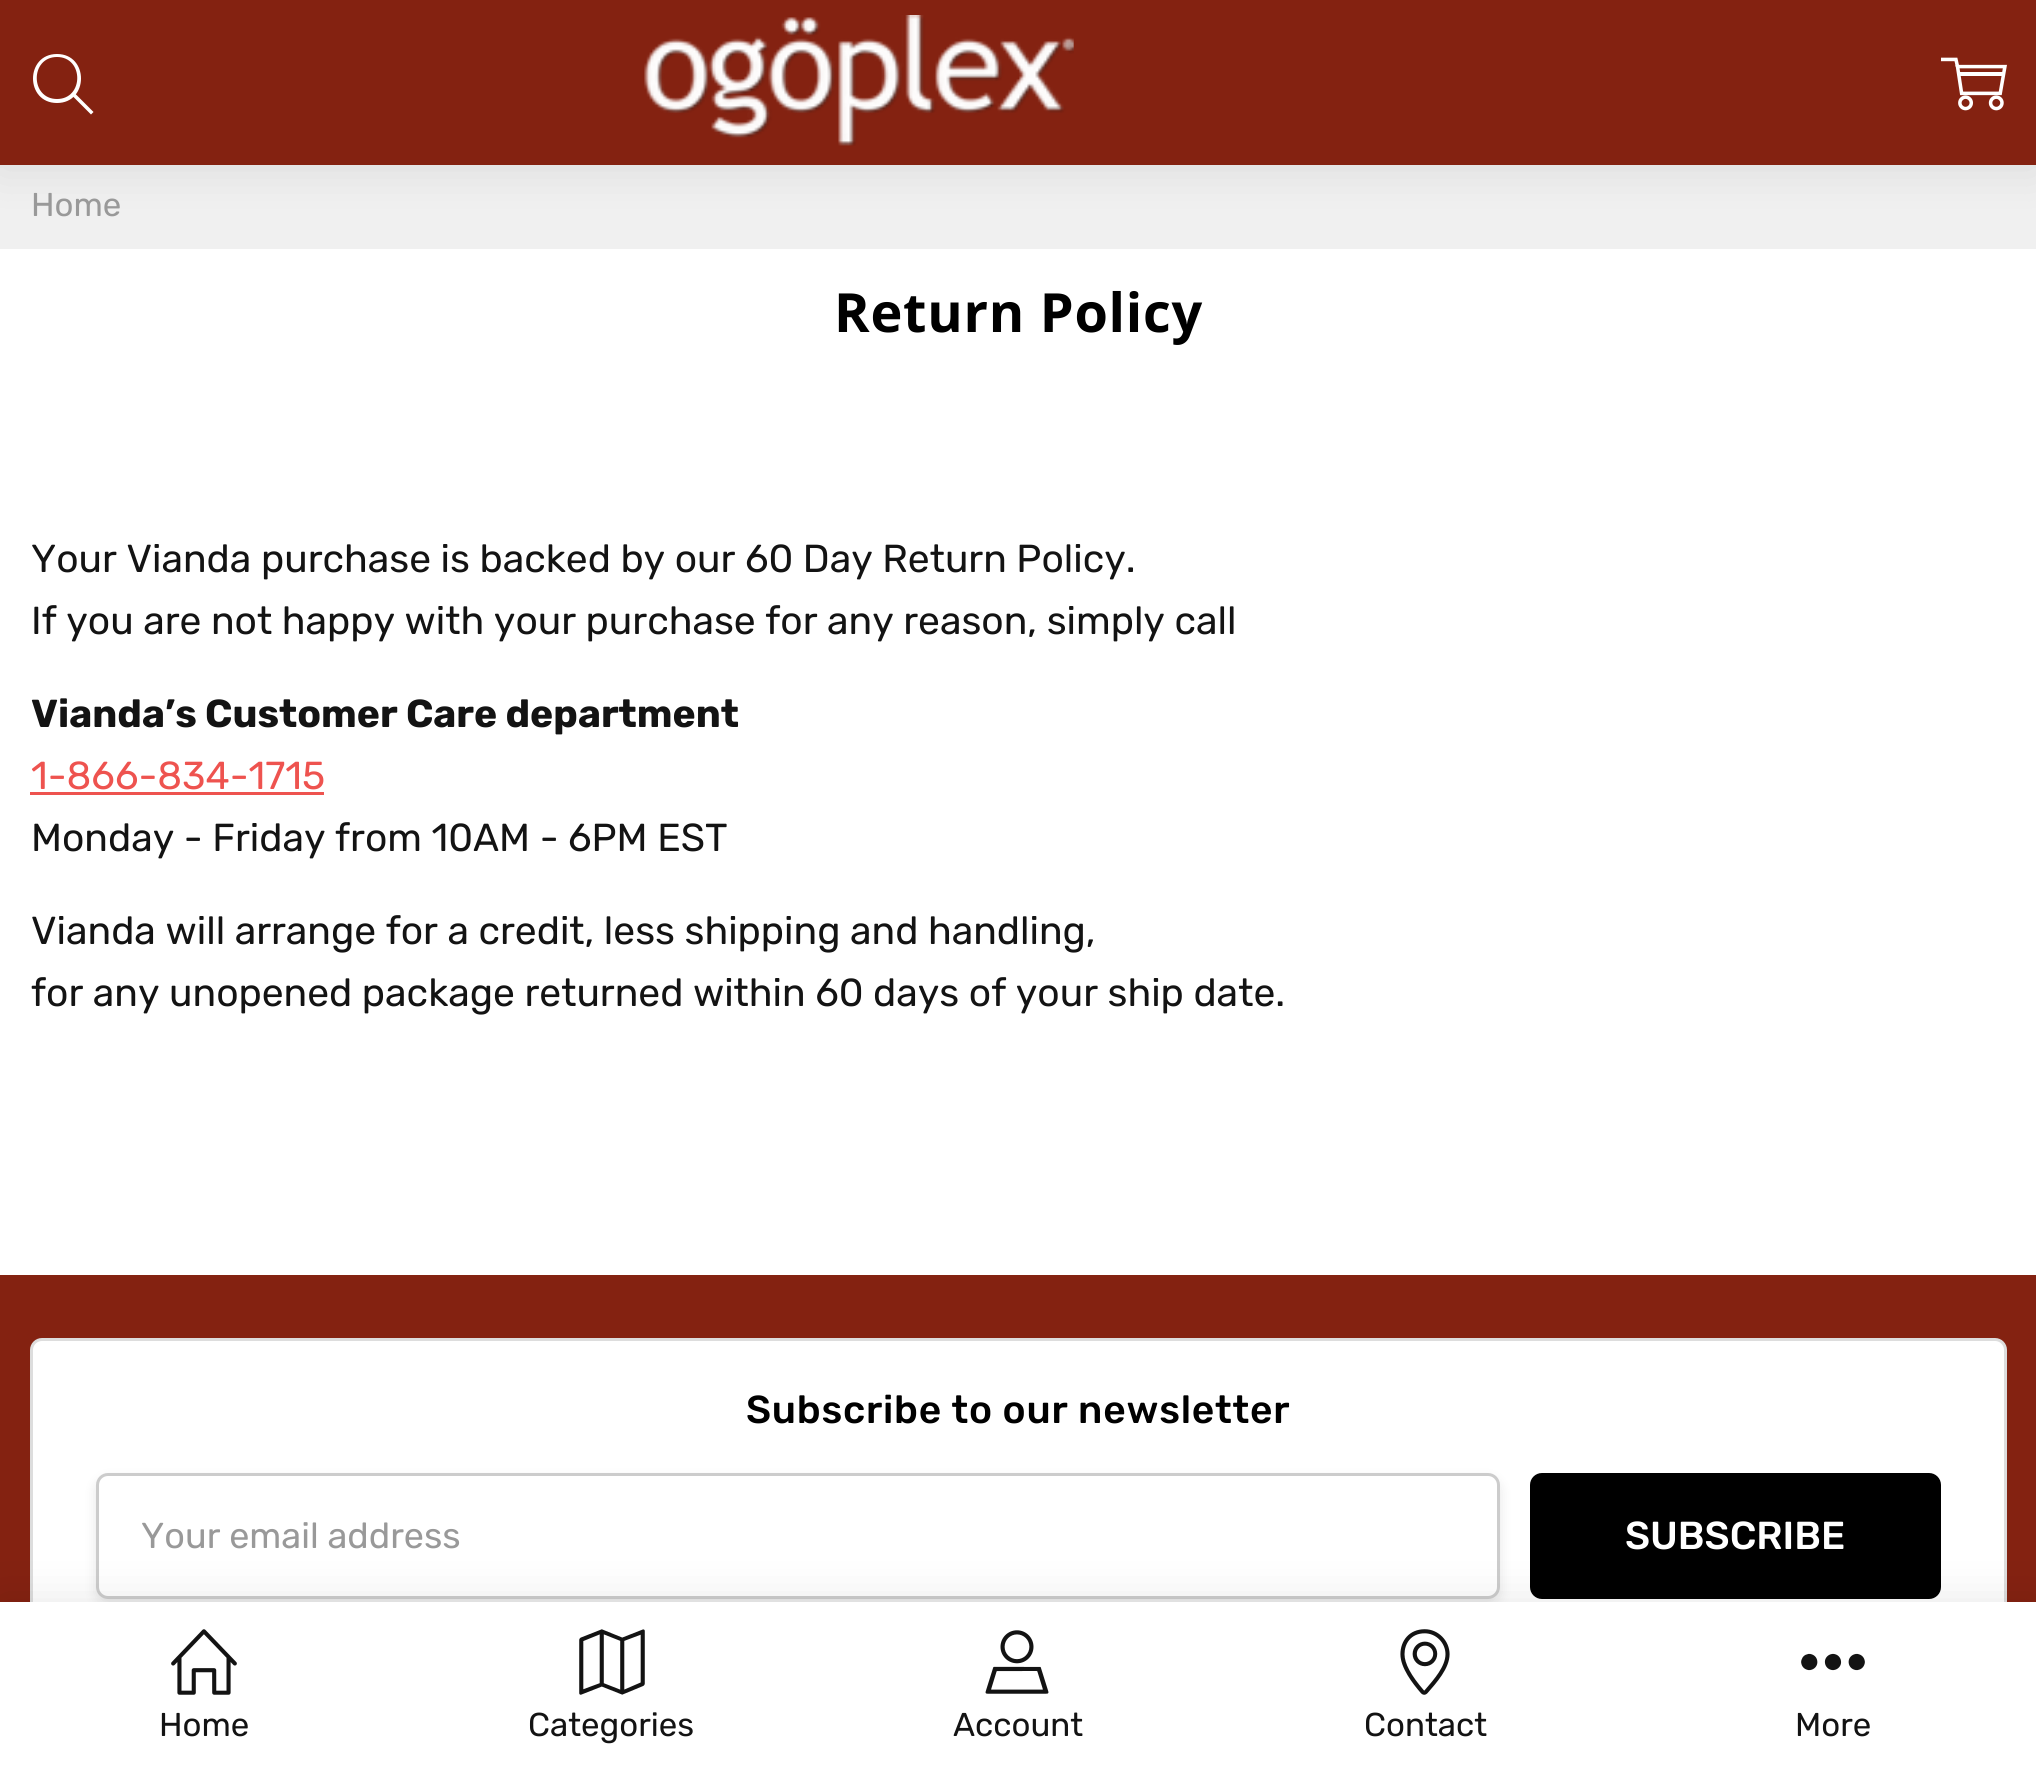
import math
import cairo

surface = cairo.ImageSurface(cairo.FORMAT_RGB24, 2036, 1765)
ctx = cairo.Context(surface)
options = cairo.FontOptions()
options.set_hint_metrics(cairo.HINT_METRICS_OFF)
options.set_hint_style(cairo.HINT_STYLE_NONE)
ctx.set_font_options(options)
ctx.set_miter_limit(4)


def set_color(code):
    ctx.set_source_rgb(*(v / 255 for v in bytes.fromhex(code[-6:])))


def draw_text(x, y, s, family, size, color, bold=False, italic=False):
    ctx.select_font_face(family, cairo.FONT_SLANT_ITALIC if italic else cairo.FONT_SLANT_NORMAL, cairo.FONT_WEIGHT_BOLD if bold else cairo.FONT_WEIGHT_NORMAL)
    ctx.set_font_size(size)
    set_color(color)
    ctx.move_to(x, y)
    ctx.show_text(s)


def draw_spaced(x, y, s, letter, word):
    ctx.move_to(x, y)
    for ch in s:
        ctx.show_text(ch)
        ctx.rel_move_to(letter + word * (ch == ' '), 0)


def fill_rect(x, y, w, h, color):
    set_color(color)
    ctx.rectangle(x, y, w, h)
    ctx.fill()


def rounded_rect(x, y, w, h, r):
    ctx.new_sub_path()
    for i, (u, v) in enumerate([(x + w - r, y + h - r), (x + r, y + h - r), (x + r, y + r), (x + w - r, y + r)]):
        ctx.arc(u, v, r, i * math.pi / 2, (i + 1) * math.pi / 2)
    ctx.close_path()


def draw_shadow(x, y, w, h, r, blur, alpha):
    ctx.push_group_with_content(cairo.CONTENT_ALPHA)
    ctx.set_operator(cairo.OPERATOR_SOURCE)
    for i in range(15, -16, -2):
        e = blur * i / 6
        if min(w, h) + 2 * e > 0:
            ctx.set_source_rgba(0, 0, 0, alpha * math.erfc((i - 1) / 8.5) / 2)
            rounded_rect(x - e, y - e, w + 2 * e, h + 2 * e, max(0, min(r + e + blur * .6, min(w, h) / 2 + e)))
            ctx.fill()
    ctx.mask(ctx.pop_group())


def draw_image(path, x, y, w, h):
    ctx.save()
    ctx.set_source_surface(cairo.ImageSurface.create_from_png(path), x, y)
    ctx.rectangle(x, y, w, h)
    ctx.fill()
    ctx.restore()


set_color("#ffffff")
ctx.paint()
fill_rect(0, 168, 2036, 81, "#f0f0f0")
set_color("#000000")
draw_shadow(0, 0, 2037, 168, 0, 22.5, 0.1)
fill_rect(0, 0, 2036, 165, "#842211")
fill_rect(0, 165, 2036, 3, "#e5e5e5")
draw_image("assets/img1.png", 644, 15, 430, 131)
set_color("#ffffff")
ctx.new_path()
ctx.move_to(57, 103)
ctx.curve_to(25, 103, 25, 54, 57, 54)
ctx.curve_to(89, 54, 89, 103, 57, 103)
ctx.close_path()
ctx.move_to(57, 57)
ctx.curve_to(30, 57, 30, 99, 57, 99)
ctx.curve_to(84, 99, 84, 57, 57, 57)
ctx.close_path()
ctx.fill()
ctx.new_path()
ctx.move_to(73.5, 92)
ctx.line_to(93.5, 112)
ctx.line_to(91, 114.5)
ctx.line_to(71, 94.5)
ctx.close_path()
ctx.fill()
draw_image("assets/img2.png", 1941, 57, 66, 54)
draw_text(31, 216, "Home", "Rubik", 33, "#999999")
ctx.select_font_face("Open Sans", cairo.FONT_SLANT_NORMAL, cairo.FONT_WEIGHT_BOLD)
ctx.set_font_size(54)
set_color("#000000")
draw_spaced(834, 332, "Return Policy", 0.75, 0)
draw_text(31, 572, "Your Vianda purchase is backed by our 60 Day Return Policy.", "Rubik", 39, "#131313")
draw_text(31, 634, "If you are not happy with your purchase for any reason, simply call", "Rubik", 39, "#131313")
draw_text(31, 727, "Vianda’s Customer Care department", "Rubik", 39, "#131313", bold=True)
draw_text(31, 789, "1-866-834-1715", "Rubik", 39, "#ee534f")
fill_rect(30, 792, 294, 3, "#ee534f")
draw_text(31, 851, "Monday - Friday from 10AM - 6PM EST", "Rubik", 39, "#131313")
draw_text(31, 944, "Vianda will arrange for a credit, less shipping and handling,", "Rubik", 39, "#131313")
draw_text(31, 1006, "for any unopened package returned within 60 days of your ship date.", "Rubik", 39, "#131313")
fill_rect(0, 1275, 2036, 327, "#842211")
set_color("#ffffff")
rounded_rect(31.5, 1339.5, 1974, 393, 10.5)
ctx.fill_preserve()
set_color("#dddddd")
ctx.set_line_width(3)
ctx.stroke()
ctx.select_font_face("Rubik Medium")
set_color("#000000")
draw_spaced(746, 1423, "Subscribe to our newsletter", 0.75, 0)
set_color("#000000")
draw_shadow(96, 1479, 1404, 126, 12, 6, 0.1)
set_color("#ffffff")
rounded_rect(97.5, 1474.5, 1401, 123, 10.5)
ctx.fill_preserve()
set_color("#cccccc")
ctx.stroke()
draw_text(141, 1548, "Your email address", "Rubik", 36, "#999999")
set_color("#000000")
rounded_rect(1531.5, 1474.5, 408, 123, 10.5)
ctx.fill_preserve()
ctx.stroke()
draw_text(1625, 1549, "SUBSCRIBE", "Rubik Medium", 39, "#ffffff")
set_color("#000000")
draw_shadow(0, 1602, 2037, 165, 0, 22.5, 0.1)
fill_rect(0, 1602, 2036, 163, "#ffffff")
draw_image("assets/img3.png", 171, 1629, 66, 66)
draw_text(159, 1736, "Home", "Rubik", 33, "#131313")
draw_image("assets/img4.png", 579, 1629, 66, 66)
draw_text(528, 1736, "Categories", "Rubik", 33, "#131313")
draw_image("assets/img5.png", 985, 1630, 64, 64)
draw_text(953, 1736, "Account", "Rubik", 33, "#131313")
draw_image("assets/img6.png", 1400, 1629, 50, 66)
draw_text(1364, 1736, "Contact", "Rubik", 33, "#131313")
draw_image("assets/img7.png", 1801, 1653, 64, 18)
draw_text(1795, 1736, "More", "Rubik", 33, "#131313")
surface.write_to_png("output.png")
